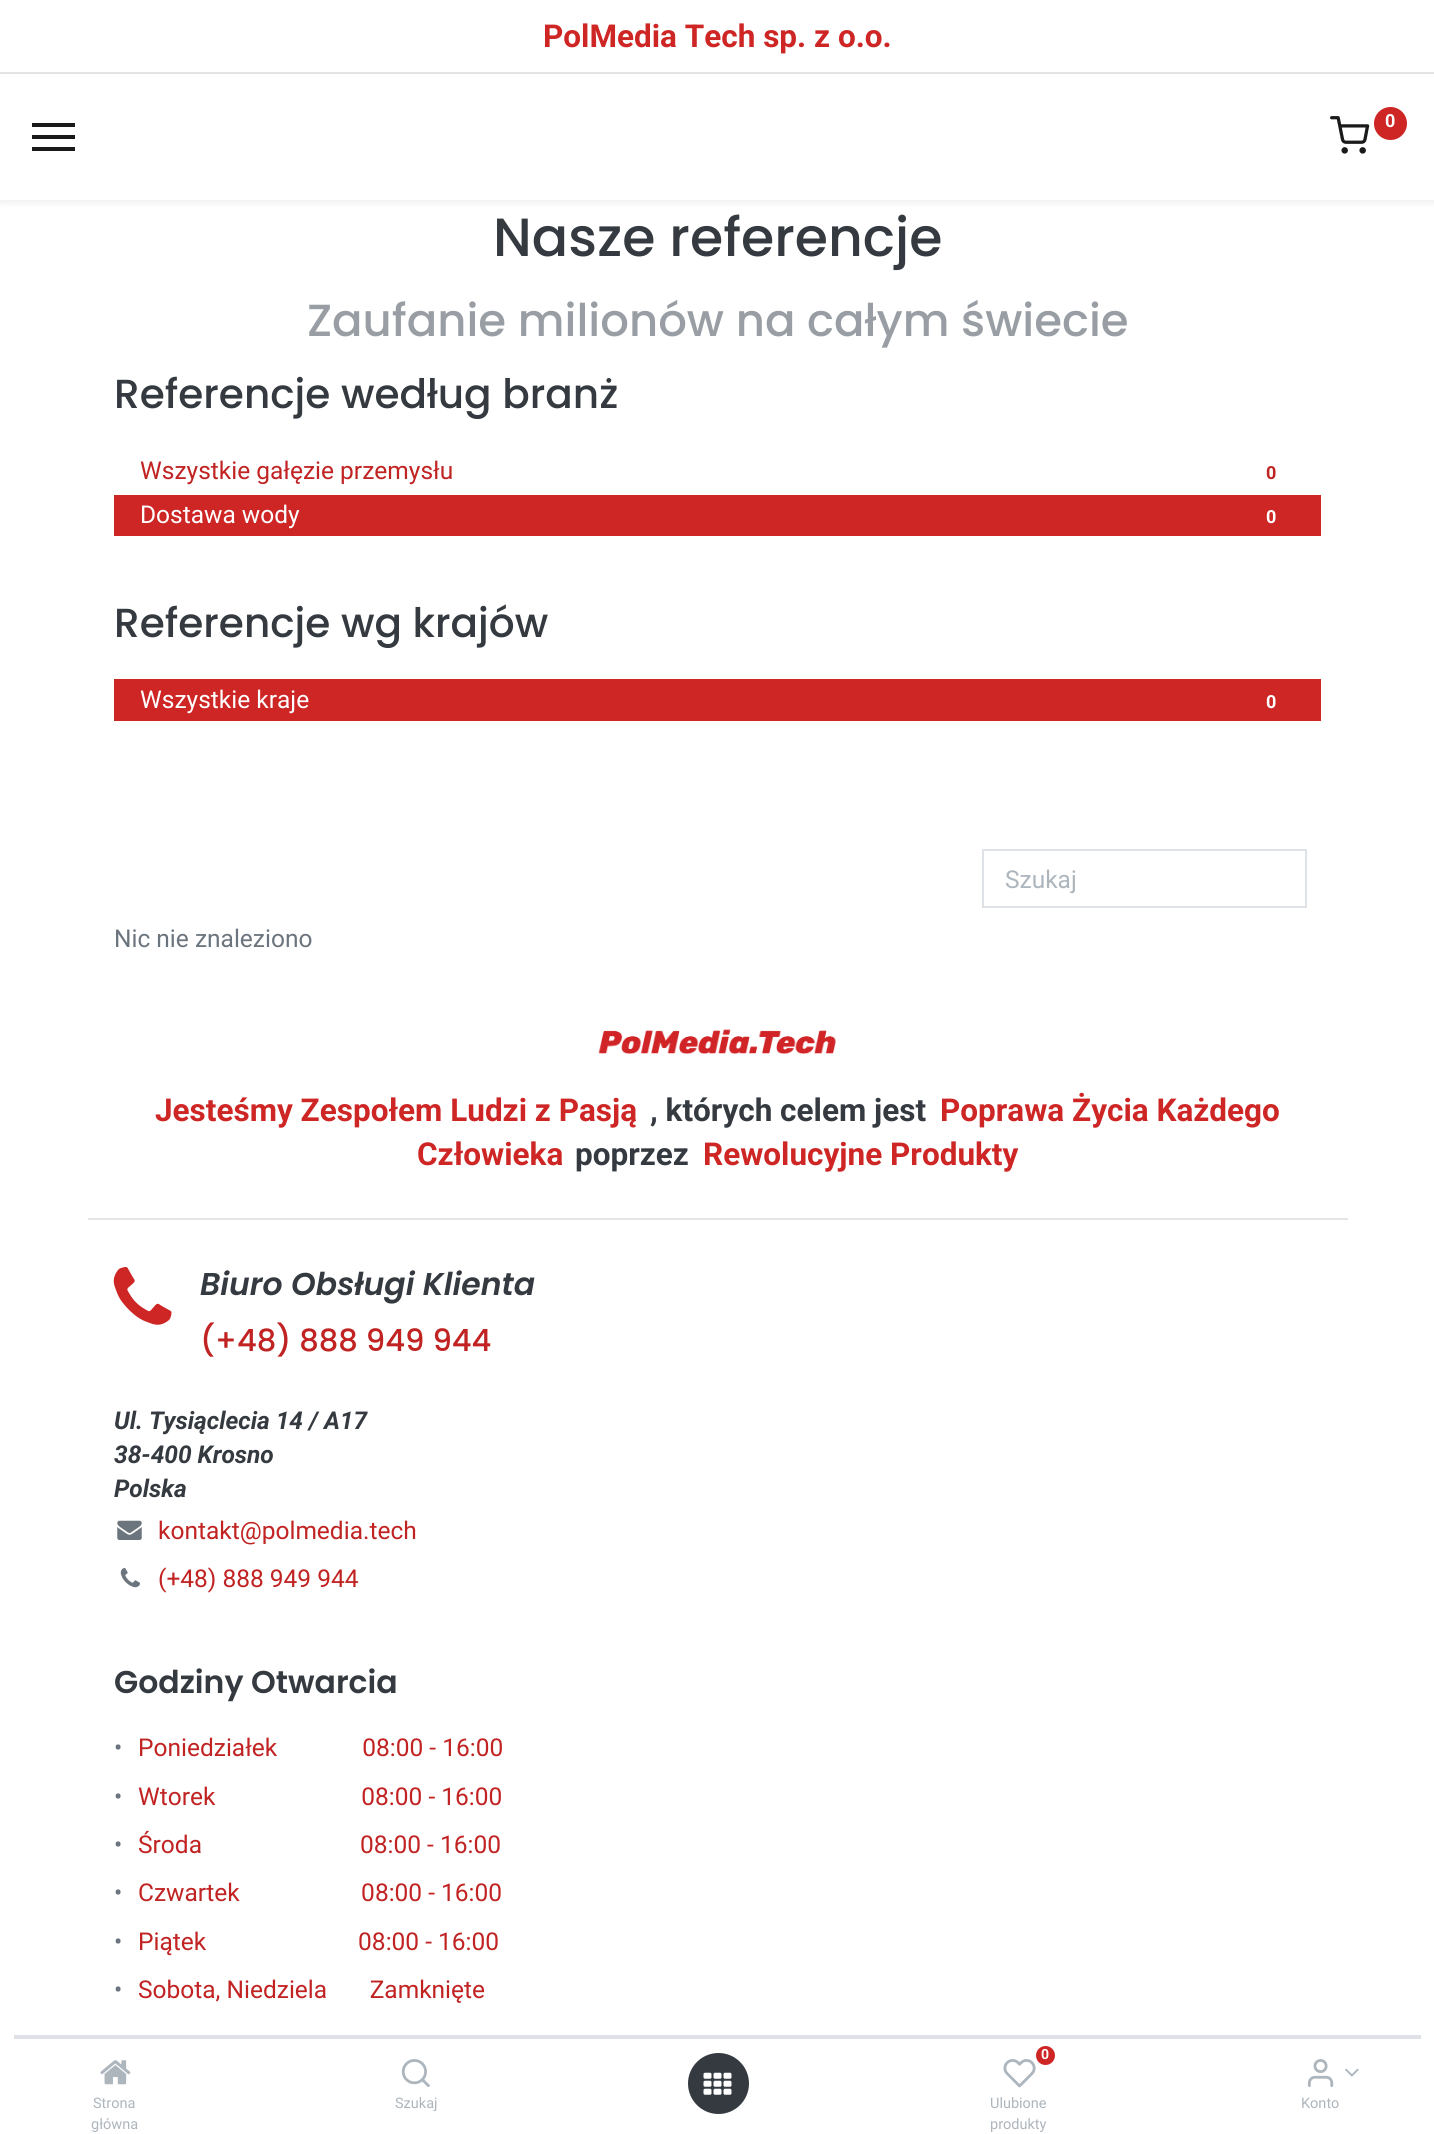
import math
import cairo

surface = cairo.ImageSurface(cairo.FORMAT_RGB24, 1434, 2134)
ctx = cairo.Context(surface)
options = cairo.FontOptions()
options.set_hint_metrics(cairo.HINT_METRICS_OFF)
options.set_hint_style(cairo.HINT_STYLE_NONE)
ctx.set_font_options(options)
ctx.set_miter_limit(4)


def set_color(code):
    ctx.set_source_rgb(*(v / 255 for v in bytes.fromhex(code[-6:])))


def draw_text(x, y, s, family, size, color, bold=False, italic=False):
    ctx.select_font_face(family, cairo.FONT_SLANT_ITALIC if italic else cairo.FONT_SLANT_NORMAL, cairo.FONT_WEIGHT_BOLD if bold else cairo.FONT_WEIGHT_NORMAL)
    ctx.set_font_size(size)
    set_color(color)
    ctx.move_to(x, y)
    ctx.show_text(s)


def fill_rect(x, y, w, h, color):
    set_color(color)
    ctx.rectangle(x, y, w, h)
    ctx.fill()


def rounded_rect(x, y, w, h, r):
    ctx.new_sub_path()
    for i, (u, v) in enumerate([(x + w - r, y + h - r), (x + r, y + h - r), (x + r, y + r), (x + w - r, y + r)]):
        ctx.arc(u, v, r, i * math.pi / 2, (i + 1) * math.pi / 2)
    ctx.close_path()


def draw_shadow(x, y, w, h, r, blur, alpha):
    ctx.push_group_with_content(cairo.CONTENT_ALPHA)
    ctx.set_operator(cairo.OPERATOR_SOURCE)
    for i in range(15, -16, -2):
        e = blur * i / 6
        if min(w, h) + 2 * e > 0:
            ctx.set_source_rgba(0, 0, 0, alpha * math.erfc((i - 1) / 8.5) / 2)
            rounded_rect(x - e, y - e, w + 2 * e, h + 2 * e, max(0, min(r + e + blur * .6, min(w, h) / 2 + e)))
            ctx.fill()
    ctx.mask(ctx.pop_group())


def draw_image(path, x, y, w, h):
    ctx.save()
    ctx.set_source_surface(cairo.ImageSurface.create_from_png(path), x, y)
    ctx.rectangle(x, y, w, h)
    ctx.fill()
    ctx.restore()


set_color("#ffffff")
ctx.paint()
fill_rect(0, 72, 1434, 2, "#e4e5e5")
draw_text(543, 47, "PolMedia Tech sp. z o.o.", "Roboto", 31.5, "#ce2525", bold=True)
set_color("#000000")
draw_shadow(0, 77, 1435, 126, 0, 3.5, 0.07)
fill_rect(0, 74, 1434, 126, "#ffffff")
draw_image("assets/img1.png", 1330, 116, 40, 38)
set_color("#ce2525")
ctx.arc(1390.5, 123.5, 16.5, 0, 2 * math.pi)
ctx.fill()
draw_text(1385, 127, "0", "Roboto", 18, "#ffffff", bold=True)
fill_rect(32, 123, 43, 4, "#1a1a1a")
fill_rect(32, 135, 43, 4, "#1a1a1a")
fill_rect(32, 147, 43, 4, "#1a1a1a")
draw_text(493, 256, "Nasze referencje", "Poppins Medium", 53.75, "#343a40")
draw_text(307, 336, "Zaufanie milionów na całym świecie", "Poppins Medium", 45, "#989ea4")
draw_text(114, 408, "Referencje według branż", "Poppins Medium", 40.6, "#343a40")
draw_text(140, 479, "Wszystkie gałęzie przemysłu", "Roboto", 24.5, "#c12323")
draw_text(1266, 479, "0", "Roboto", 18, "#c12323", bold=True)
fill_rect(114, 495, 1207, 41, "#ce2525")
draw_text(140, 523, "Dostawa wody", "Roboto", 24.5, "#ffffff")
draw_text(1266, 523, "0", "Roboto", 18, "#ffffff", bold=True)
draw_text(114, 637, "Referencje wg krajów", "Poppins Medium", 40.6, "#343a40")
fill_rect(114, 679, 1207, 42, "#ce2525")
draw_text(140, 708, "Wszystkie kraje", "Roboto", 24.5, "#ffffff")
draw_text(1266, 708, "0", "Roboto", 18, "#ffffff", bold=True)
ctx.rectangle(983, 850, 323, 57)
set_color("#dee2e6")
ctx.stroke()
draw_text(1005, 888, "Szukaj", "Roboto", 24.5, "#adb5bd")
draw_text(114, 947, "Nic nie znaleziono", "Roboto", 24.5, "#6c757d")
fill_rect(88, 1218, 1260, 2, "#e4e5e5")
draw_image("assets/img2.png", 598, 1029, 238, 25)
draw_text(155, 1121, "Jesteśmy Zespołem Ludzi z Pasją", "Roboto", 31.5, "#ce2525", bold=True)
draw_text(650, 1121, ", których celem jest", "Roboto", 31.5, "#343a40", bold=True)
draw_text(940, 1121, "Poprawa Życia Każdego", "Roboto", 31.5, "#ce2525", bold=True)
draw_text(417, 1165, "Człowieka", "Roboto", 31.5, "#ce2525", bold=True)
draw_text(575, 1165, "poprzez", "Roboto", 31.5, "#343a40", bold=True)
draw_text(703, 1165, "Rewolucyjne Produkty", "Roboto", 31.5, "#ce2525", bold=True)
draw_image("assets/img3.png", 113, 1267, 59, 58)
draw_text(200, 1295, "Biuro Obsługi Klienta", "Poppins SemiBold", 31.5, "#343a40", italic=True)
draw_text(200, 1351, "(+48) 888 949 944", "Poppins Medium", 30.6, "#c12323")
draw_text(114, 1429, "Ul. Tysiąclecia 14 / A17", "Roboto", 24.5, "#343a40", bold=True, italic=True)
draw_text(114, 1463, "38-400 Krosno", "Roboto", 24.5, "#343a40", bold=True, italic=True)
draw_text(114, 1497, "Polska", "Roboto", 24.5, "#343a40", bold=True, italic=True)
draw_image("assets/img4.png", 117, 1520, 25, 20)
draw_text(158, 1539, "kontakt@polmedia.tech", "Roboto", 24.5, "#c12323")
draw_image("assets/img5.png", 120, 1568, 20, 20)
draw_text(158, 1587, "(+48) 888 949 944", "Roboto", 24.5, "#c12323")
draw_text(114, 1693, "Godziny Otwarcia", "Poppins SemiBold", 31.5, "#343a40")
draw_text(114, 1756, "•", "Roboto", 24.5, "#6c757d")
draw_text(138, 1756, "Poniedziałek              08:00 - 16:00", "Roboto", 24.5, "#c12323")
draw_text(114, 1805, "•", "Roboto", 24.5, "#6c757d")
draw_text(138, 1805, "Wtorek                        08:00 - 16:00", "Roboto", 24.5, "#c12323")
draw_text(114, 1853, "•", "Roboto", 24.5, "#6c757d")
draw_text(138, 1853, "Środa                          08:00 - 16:00", "Roboto", 24.5, "#c12323")
draw_text(114, 1901, "•", "Roboto", 24.5, "#6c757d")
draw_text(138, 1901, "Czwartek                    08:00 - 16:00", "Roboto", 24.5, "#c12323")
draw_text(114, 1950, "•", "Roboto", 24.5, "#6c757d")
draw_text(138, 1950, "Piątek                         08:00 - 16:00", "Roboto", 24.5, "#c12323")
draw_text(114, 1998, "•", "Roboto", 24.5, "#6c757d")
draw_text(138, 1998, "Sobota, Niedziela       Zamknięte", "Roboto", 24.5, "#c12323")
fill_rect(14, 2035, 1407, 4, "#dee2e6")
draw_image("assets/img6.png", 100, 2060, 31, 25)
draw_text(93, 2108, "Strona", "Roboto", 14.5, "#adb5bd")
draw_text(91, 2129, "główna", "Roboto", 14.5, "#adb5bd")
draw_image("assets/img7.png", 401, 2059, 29, 28)
draw_text(395, 2108, "Szukaj", "Roboto", 14.5, "#adb5bd")
set_color("#343a40")
ctx.new_path()
ctx.arc(718.5, 2083.5, 30.5, 0, 2 * math.pi)
ctx.fill()
draw_image("assets/img8.png", 703, 2072, 29, 23)
set_color("#ce2525")
ctx.arc(1045.5, 2055.5, 9.5, 0, 2 * math.pi)
ctx.fill()
draw_text(1041, 2059, "0", "Roboto", 14, "#ffffff", bold=True)
draw_image("assets/img9.png", 1003, 2059, 33, 29)
draw_text(990, 2108, "Ulubione", "Roboto", 14.5, "#adb5bd")
draw_text(990, 2129, "produkty", "Roboto", 14.5, "#adb5bd")
draw_image("assets/img10.png", 1307, 2059, 27, 28)
draw_image("assets/img11.png", 1345, 2068, 14, 9)
draw_text(1301, 2108, "Konto", "Roboto", 14.5, "#adb5bd")
surface.write_to_png("output.png")
